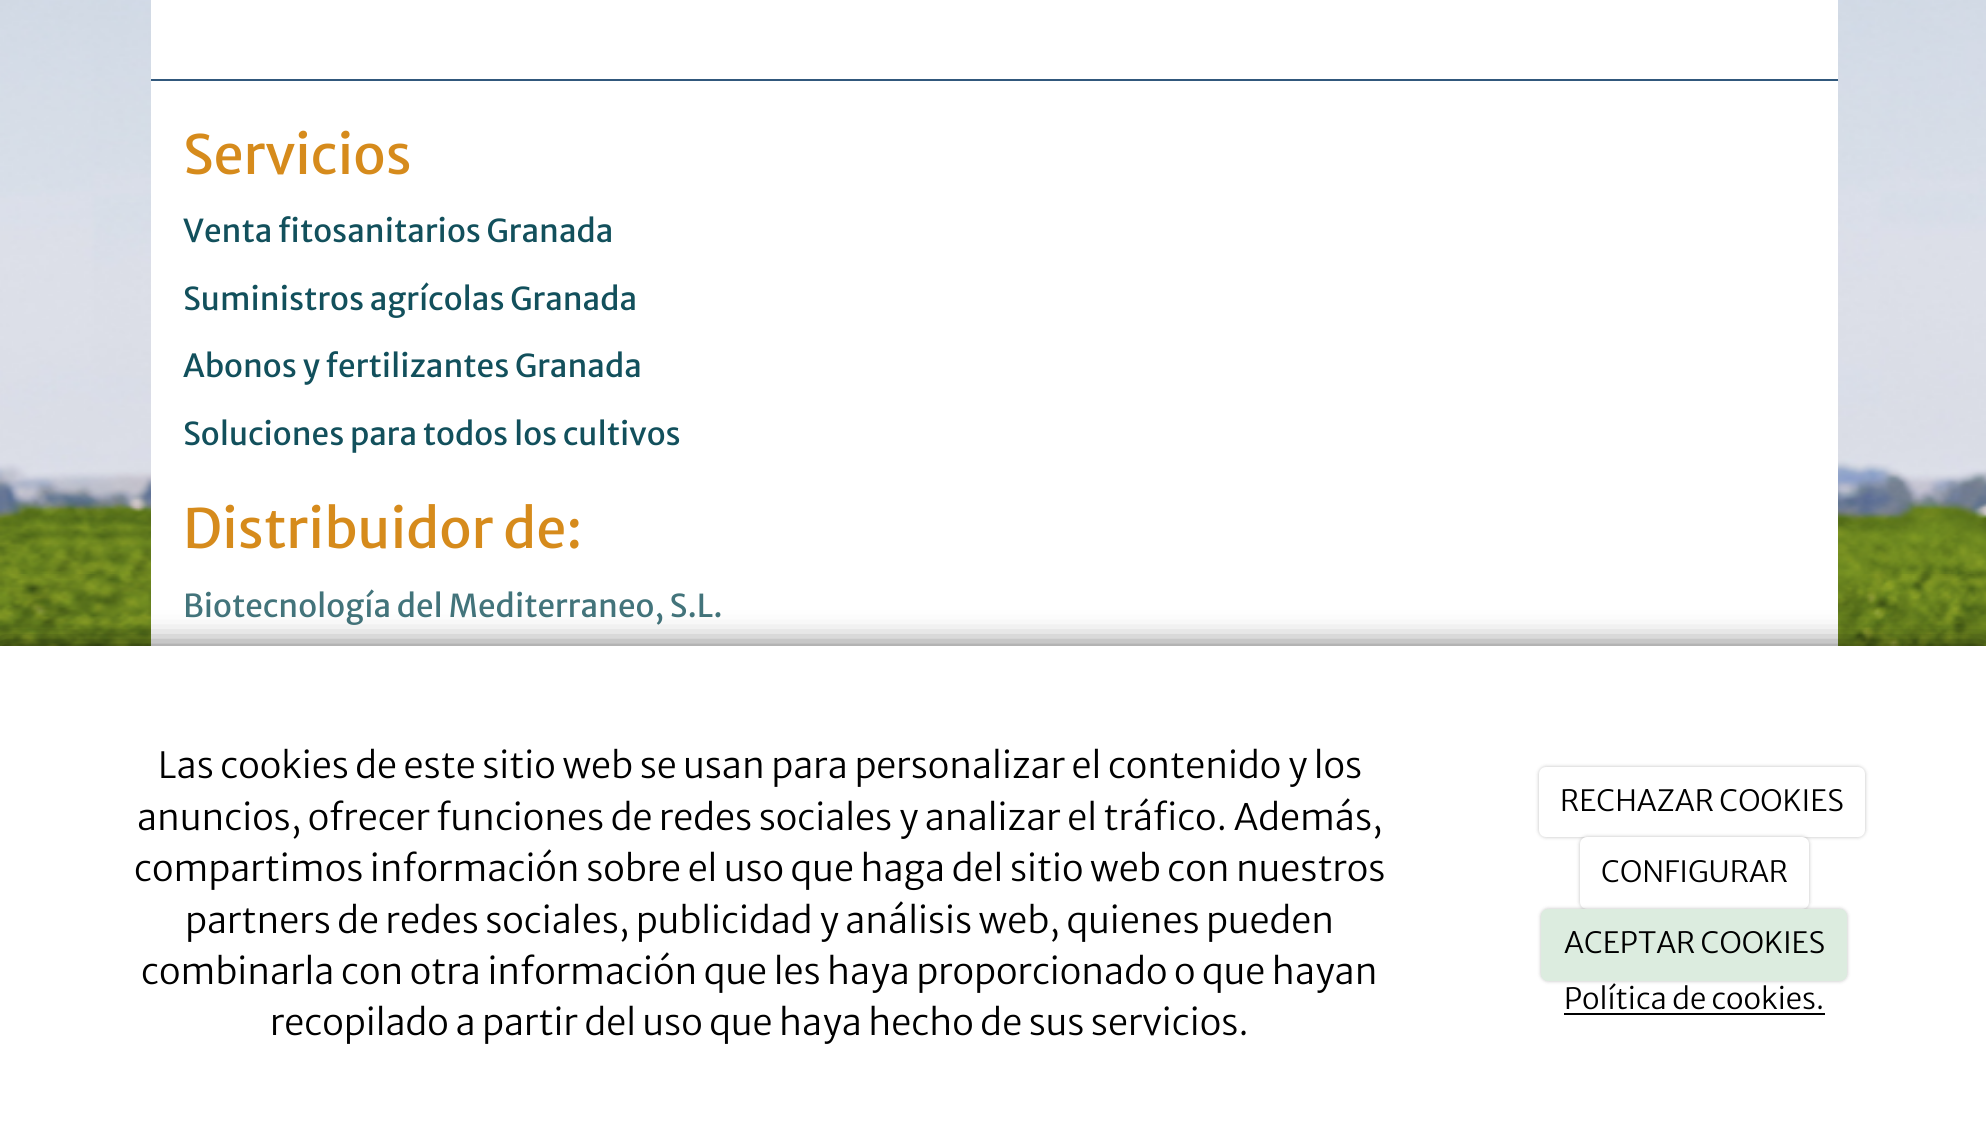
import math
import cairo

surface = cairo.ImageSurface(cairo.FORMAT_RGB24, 1986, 1143)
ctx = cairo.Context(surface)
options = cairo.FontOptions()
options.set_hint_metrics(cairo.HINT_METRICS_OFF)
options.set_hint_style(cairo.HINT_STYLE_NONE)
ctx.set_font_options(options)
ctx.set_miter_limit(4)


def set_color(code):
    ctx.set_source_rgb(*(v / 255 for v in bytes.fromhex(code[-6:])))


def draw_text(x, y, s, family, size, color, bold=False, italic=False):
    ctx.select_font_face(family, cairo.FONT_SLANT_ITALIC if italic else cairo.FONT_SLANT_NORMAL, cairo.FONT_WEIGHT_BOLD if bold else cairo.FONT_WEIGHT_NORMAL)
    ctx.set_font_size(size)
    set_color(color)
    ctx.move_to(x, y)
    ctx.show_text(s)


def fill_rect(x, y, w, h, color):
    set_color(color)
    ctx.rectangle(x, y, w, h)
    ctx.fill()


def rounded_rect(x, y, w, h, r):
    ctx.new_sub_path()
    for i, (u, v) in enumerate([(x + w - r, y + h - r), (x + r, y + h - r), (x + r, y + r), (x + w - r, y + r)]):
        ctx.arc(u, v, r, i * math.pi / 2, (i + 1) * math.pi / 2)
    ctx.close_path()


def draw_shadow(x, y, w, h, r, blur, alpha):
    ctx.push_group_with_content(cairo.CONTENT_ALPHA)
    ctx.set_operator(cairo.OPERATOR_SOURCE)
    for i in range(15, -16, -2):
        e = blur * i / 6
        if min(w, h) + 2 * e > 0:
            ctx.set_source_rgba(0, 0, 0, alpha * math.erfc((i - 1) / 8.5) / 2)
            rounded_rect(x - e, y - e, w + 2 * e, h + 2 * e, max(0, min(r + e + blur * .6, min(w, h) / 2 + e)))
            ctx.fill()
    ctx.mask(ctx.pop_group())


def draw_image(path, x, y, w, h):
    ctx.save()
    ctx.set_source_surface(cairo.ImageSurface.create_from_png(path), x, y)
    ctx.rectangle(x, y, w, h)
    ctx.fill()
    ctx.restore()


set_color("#ffffff")
ctx.paint()
draw_image("assets/img1.png", 0, 0, 1986, 646)
fill_rect(151, 0, 1687, 646, "#ffffff")
fill_rect(151, 79, 1687, 2, "#31587c")
draw_text(183, 174, "Servicios", "Merriweather Sans", 54, "#d68b1c")
draw_text(183, 242, "Venta fitosanitarios Granada", "Merriweather Sans", 31.5, "#12505c")
draw_text(183, 310, "Suministros agrícolas Granada", "Merriweather Sans", 31.5, "#12505c")
draw_text(183, 377, "Abonos y fertilizantes Granada", "Merriweather Sans", 31.5, "#12505c")
draw_text(183, 445, "Soluciones para todos los cultivos", "Merriweather Sans", 31.5, "#12505c")
draw_text(183, 548, "Distribuidor de:", "Merriweather Sans", 54, "#d68b1c")
draw_text(183, 617, "Biotecnología del Mediterraneo, S.L.", "Merriweather Sans", 31.5, "#43747b")
set_color("#000000")
draw_shadow(0, 646, 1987, 497, 0, 14.5, 0.6)
fill_rect(0, 646, 1986, 497, "#ffffff")
draw_text(158, 778, "Las cookies de este sitio web se usan para personalizar el contenido y los", "Merriweather Sans Light", 36, "#000000")
draw_text(137, 830, "anuncios, ofrecer funciones de redes sociales y analizar el tráfico. Además,", "Merriweather Sans Light", 36, "#000000")
draw_text(134, 881, "compartimos información sobre el uso que haga del sitio web con nuestros", "Merriweather Sans Light", 36, "#000000")
draw_text(185, 933, "partners de redes sociales, publicidad y análisis web, quienes pueden", "Merriweather Sans Light", 36, "#000000")
draw_text(141, 984, "combinarla con otra información que les haya proporcionado o que hayan", "Merriweather Sans Light", 36, "#000000")
draw_text(270, 1035, "recopilado a partir del uso que haya hecho de sus servicios.", "Merriweather Sans Light", 36, "#000000")
set_color("#000000")
draw_shadow(1539, 767, 326, 70, 7, 2, 0.25)
set_color("#ffffff")
rounded_rect(1539, 767, 326, 70, 7)
ctx.fill()
draw_text(1560, 811, "RECHAZAR COOKIES", "Merriweather Sans Light", 29.25, "#000000")
set_color("#000000")
draw_shadow(1580, 837, 229, 72, 7, 2, 0.25)
set_color("#ffffff")
rounded_rect(1580, 837, 229, 72, 7)
ctx.fill()
draw_text(1601, 882, "CONFIGURAR", "Merriweather Sans Light", 29.25, "#000000")
set_color("#000000")
draw_shadow(1541, 909, 306, 72, 7, 2, 0.25)
set_color("#dcecdf")
rounded_rect(1541, 909, 306, 72, 7)
ctx.fill()
draw_text(1564, 953, "ACEPTAR COOKIES", "Merriweather Sans Light", 29.25, "#000000")
draw_text(1564, 1009, "Política de cookies.", "Merriweather Sans Light", 29.25, "#000000")
fill_rect(1564, 1013, 261, 2, "#000000")
surface.write_to_png("output.png")
